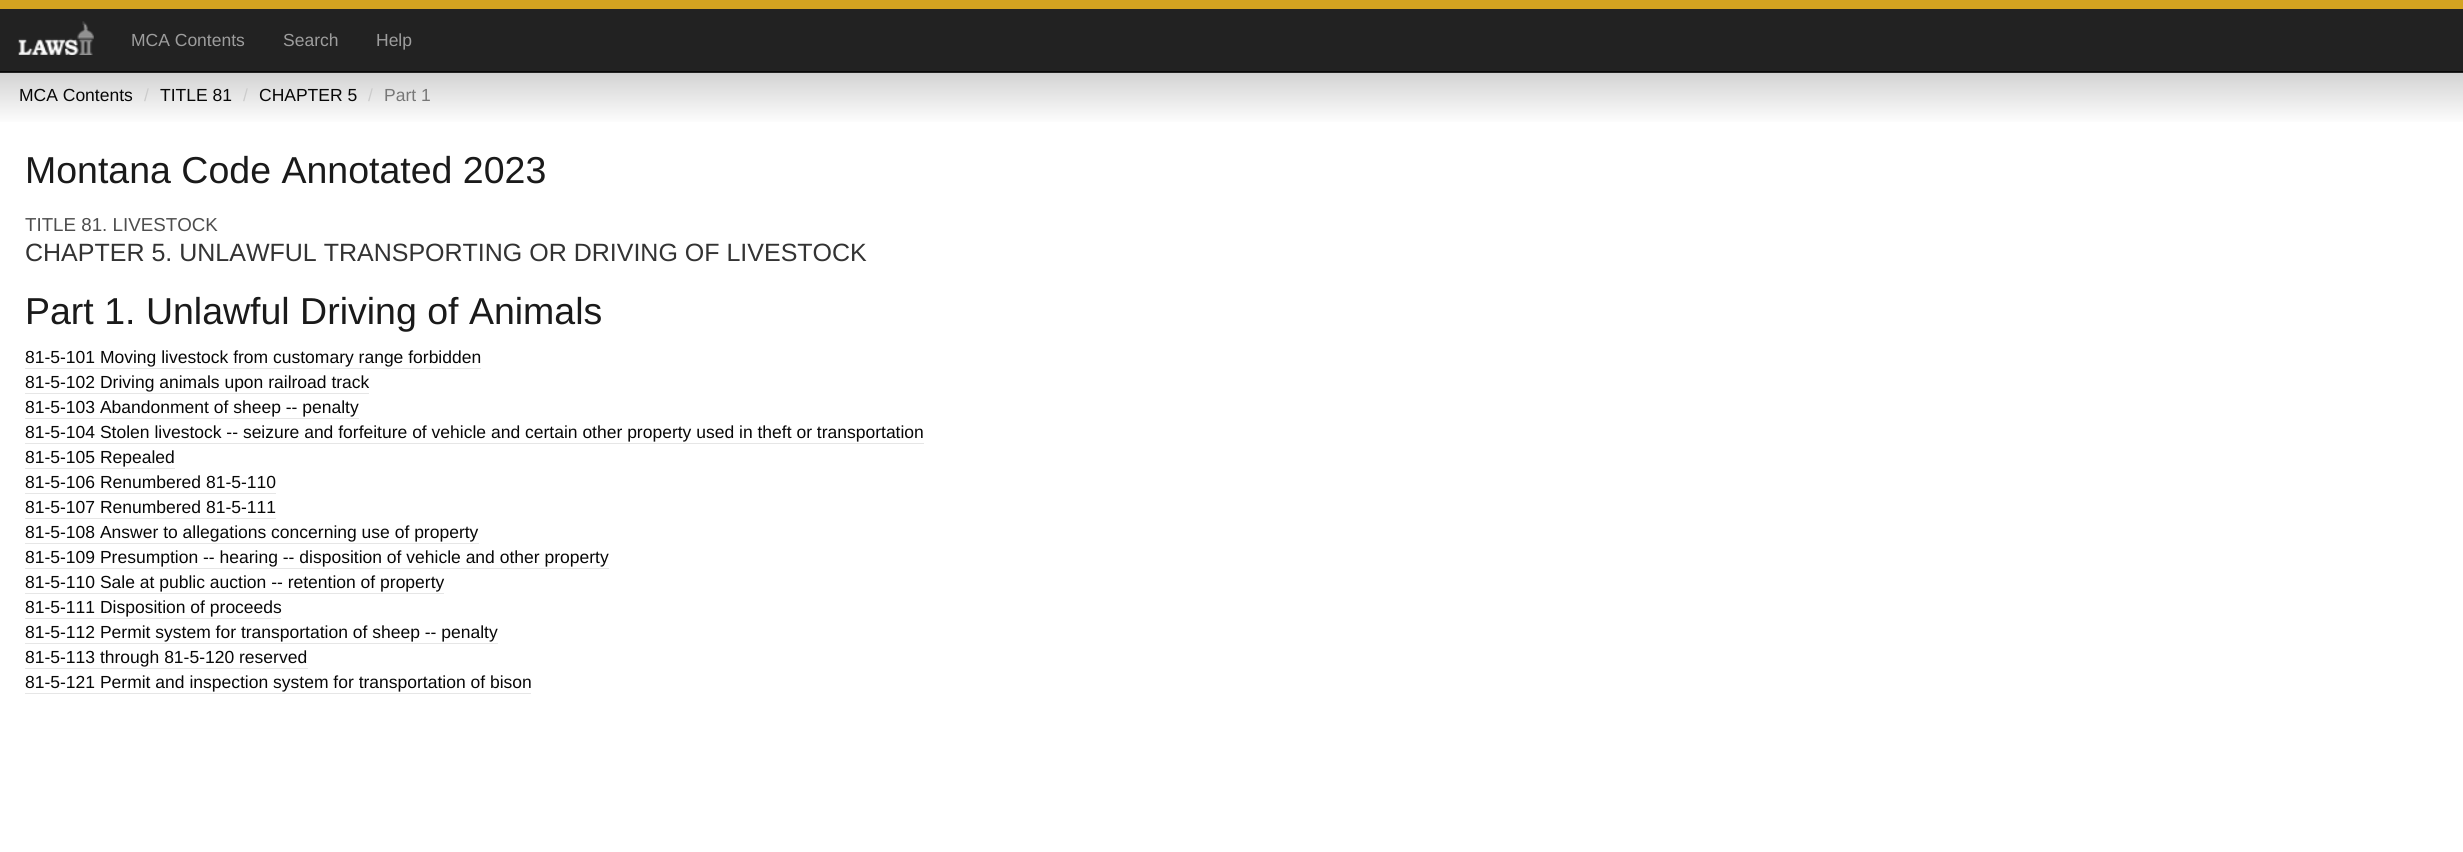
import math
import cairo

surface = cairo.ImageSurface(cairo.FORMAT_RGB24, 2463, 852)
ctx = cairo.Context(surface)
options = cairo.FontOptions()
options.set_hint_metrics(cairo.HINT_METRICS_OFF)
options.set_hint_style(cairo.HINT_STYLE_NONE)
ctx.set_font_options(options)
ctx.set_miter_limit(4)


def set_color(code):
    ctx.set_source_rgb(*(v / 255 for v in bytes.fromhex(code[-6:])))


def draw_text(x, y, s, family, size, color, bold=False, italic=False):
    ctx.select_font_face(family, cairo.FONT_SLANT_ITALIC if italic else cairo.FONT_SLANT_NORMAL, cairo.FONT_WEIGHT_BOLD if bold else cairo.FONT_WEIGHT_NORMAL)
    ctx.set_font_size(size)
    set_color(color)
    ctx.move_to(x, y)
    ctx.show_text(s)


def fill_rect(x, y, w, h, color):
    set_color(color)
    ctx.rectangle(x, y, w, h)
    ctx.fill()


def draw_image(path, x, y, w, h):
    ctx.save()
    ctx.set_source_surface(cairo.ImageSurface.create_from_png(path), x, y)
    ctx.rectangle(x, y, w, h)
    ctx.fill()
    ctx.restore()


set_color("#ffffff")
ctx.paint()
fill_rect(0, 9, 2463, 64, "#222222")
fill_rect(0, 0, 2463, 9, "#d4a320")
fill_rect(0, 71, 2463, 1, "#080808")
draw_image("assets/img1.png", 18, 21, 76, 34)
draw_text(131, 46, "MCA Contents", "Liberation Sans", 17.5, "#9d9d9d")
draw_text(283, 46, "Search", "Liberation Sans", 17.5, "#9d9d9d")
draw_text(376, 46, "Help", "Liberation Sans", 17.5, "#9d9d9d")
gradient = cairo.LinearGradient(1232, 72, 1232, 124)
gradient.add_color_stop_rgba(0, 0.824, 0.824, 0.824, 1)
gradient.add_color_stop_rgba(1, 0.996, 0.996, 0.996, 1)
ctx.set_source(gradient)
ctx.rectangle(0, 73, 2463, 49)
ctx.fill()
draw_text(19, 101, "MCA Contents", "Liberation Sans", 17.5, "#070707")
draw_text(144, 101, "/", "Liberation Sans", 17.5, "#cccccc")
draw_text(160, 101, "TITLE 81", "Liberation Sans", 17.5, "#070707")
draw_text(243, 101, "/", "Liberation Sans", 17.5, "#cccccc")
draw_text(259, 101, "CHAPTER 5", "Liberation Sans", 17.5, "#070707")
draw_text(368, 101, "/", "Liberation Sans", 17.5, "#cccccc")
draw_text(384, 101, "Part 1", "Liberation Sans", 17.5, "#777777")
draw_text(25, 183, "Montana Code Annotated 2023", "Liberation Sans", 37.5, "#1a1a1a")
draw_text(25, 231, "TITLE 81. LIVESTOCK", "Liberation Sans", 18.75, "#4d4d4d")
draw_text(25, 261, "CHAPTER 5. UNLAWFUL TRANSPORTING OR DRIVING OF LIVESTOCK", "Liberation Sans", 25, "#333333")
draw_text(25, 324, "Part 1. Unlawful Driving of Animals", "Liberation Sans", 37.5, "#1a1a1a")
draw_text(25, 363, "81-5-101 Moving livestock from customary range forbidden", "Liberation Sans", 17.5, "#070707")
fill_rect(25, 368, 456, 1, "#e6e6e6")
draw_text(25, 388, "81-5-102 Driving animals upon railroad track", "Liberation Sans", 17.5, "#070707")
fill_rect(25, 393, 344, 1, "#e6e6e6")
draw_text(25, 413, "81-5-103 Abandonment of sheep -- penalty", "Liberation Sans", 17.5, "#070707")
fill_rect(25, 418, 334, 1, "#e6e6e6")
draw_text(25, 438, "81-5-104 Stolen livestock -- seizure and forfeiture of vehicle and certain other property used in theft or transportation", "Liberation Sans", 17.5, "#070707")
fill_rect(25, 443, 899, 1, "#e6e6e6")
draw_text(25, 463, "81-5-105 Repealed", "Liberation Sans", 17.5, "#070707")
fill_rect(25, 468, 150, 1, "#e6e6e6")
draw_text(25, 488, "81-5-106 Renumbered 81-5-110", "Liberation Sans", 17.5, "#070707")
fill_rect(25, 493, 251, 1, "#e6e6e6")
draw_text(25, 513, "81-5-107 Renumbered 81-5-111", "Liberation Sans", 17.5, "#070707")
fill_rect(25, 518, 251, 1, "#e6e6e6")
draw_text(25, 538, "81-5-108 Answer to allegations concerning use of property", "Liberation Sans", 17.5, "#070707")
fill_rect(25, 543, 454, 1, "#e6e6e6")
draw_text(25, 563, "81-5-109 Presumption -- hearing -- disposition of vehicle and other property", "Liberation Sans", 17.5, "#070707")
fill_rect(25, 568, 584, 1, "#e6e6e6")
draw_text(25, 588, "81-5-110 Sale at public auction -- retention of property", "Liberation Sans", 17.5, "#070707")
fill_rect(25, 593, 419, 1, "#e6e6e6")
draw_text(25, 613, "81-5-111 Disposition of proceeds", "Liberation Sans", 17.5, "#070707")
fill_rect(25, 618, 256, 1, "#e6e6e6")
draw_text(25, 638, "81-5-112 Permit system for transportation of sheep -- penalty", "Liberation Sans", 17.5, "#070707")
fill_rect(25, 643, 473, 1, "#e6e6e6")
draw_text(25, 663, "81-5-113 through 81-5-120 reserved", "Liberation Sans", 17.5, "#070707")
fill_rect(25, 668, 283, 1, "#e6e6e6")
draw_text(25, 688, "81-5-121 Permit and inspection system for transportation of bison", "Liberation Sans", 17.5, "#070707")
fill_rect(25, 693, 506, 1, "#e6e6e6")
surface.write_to_png("output.png")
